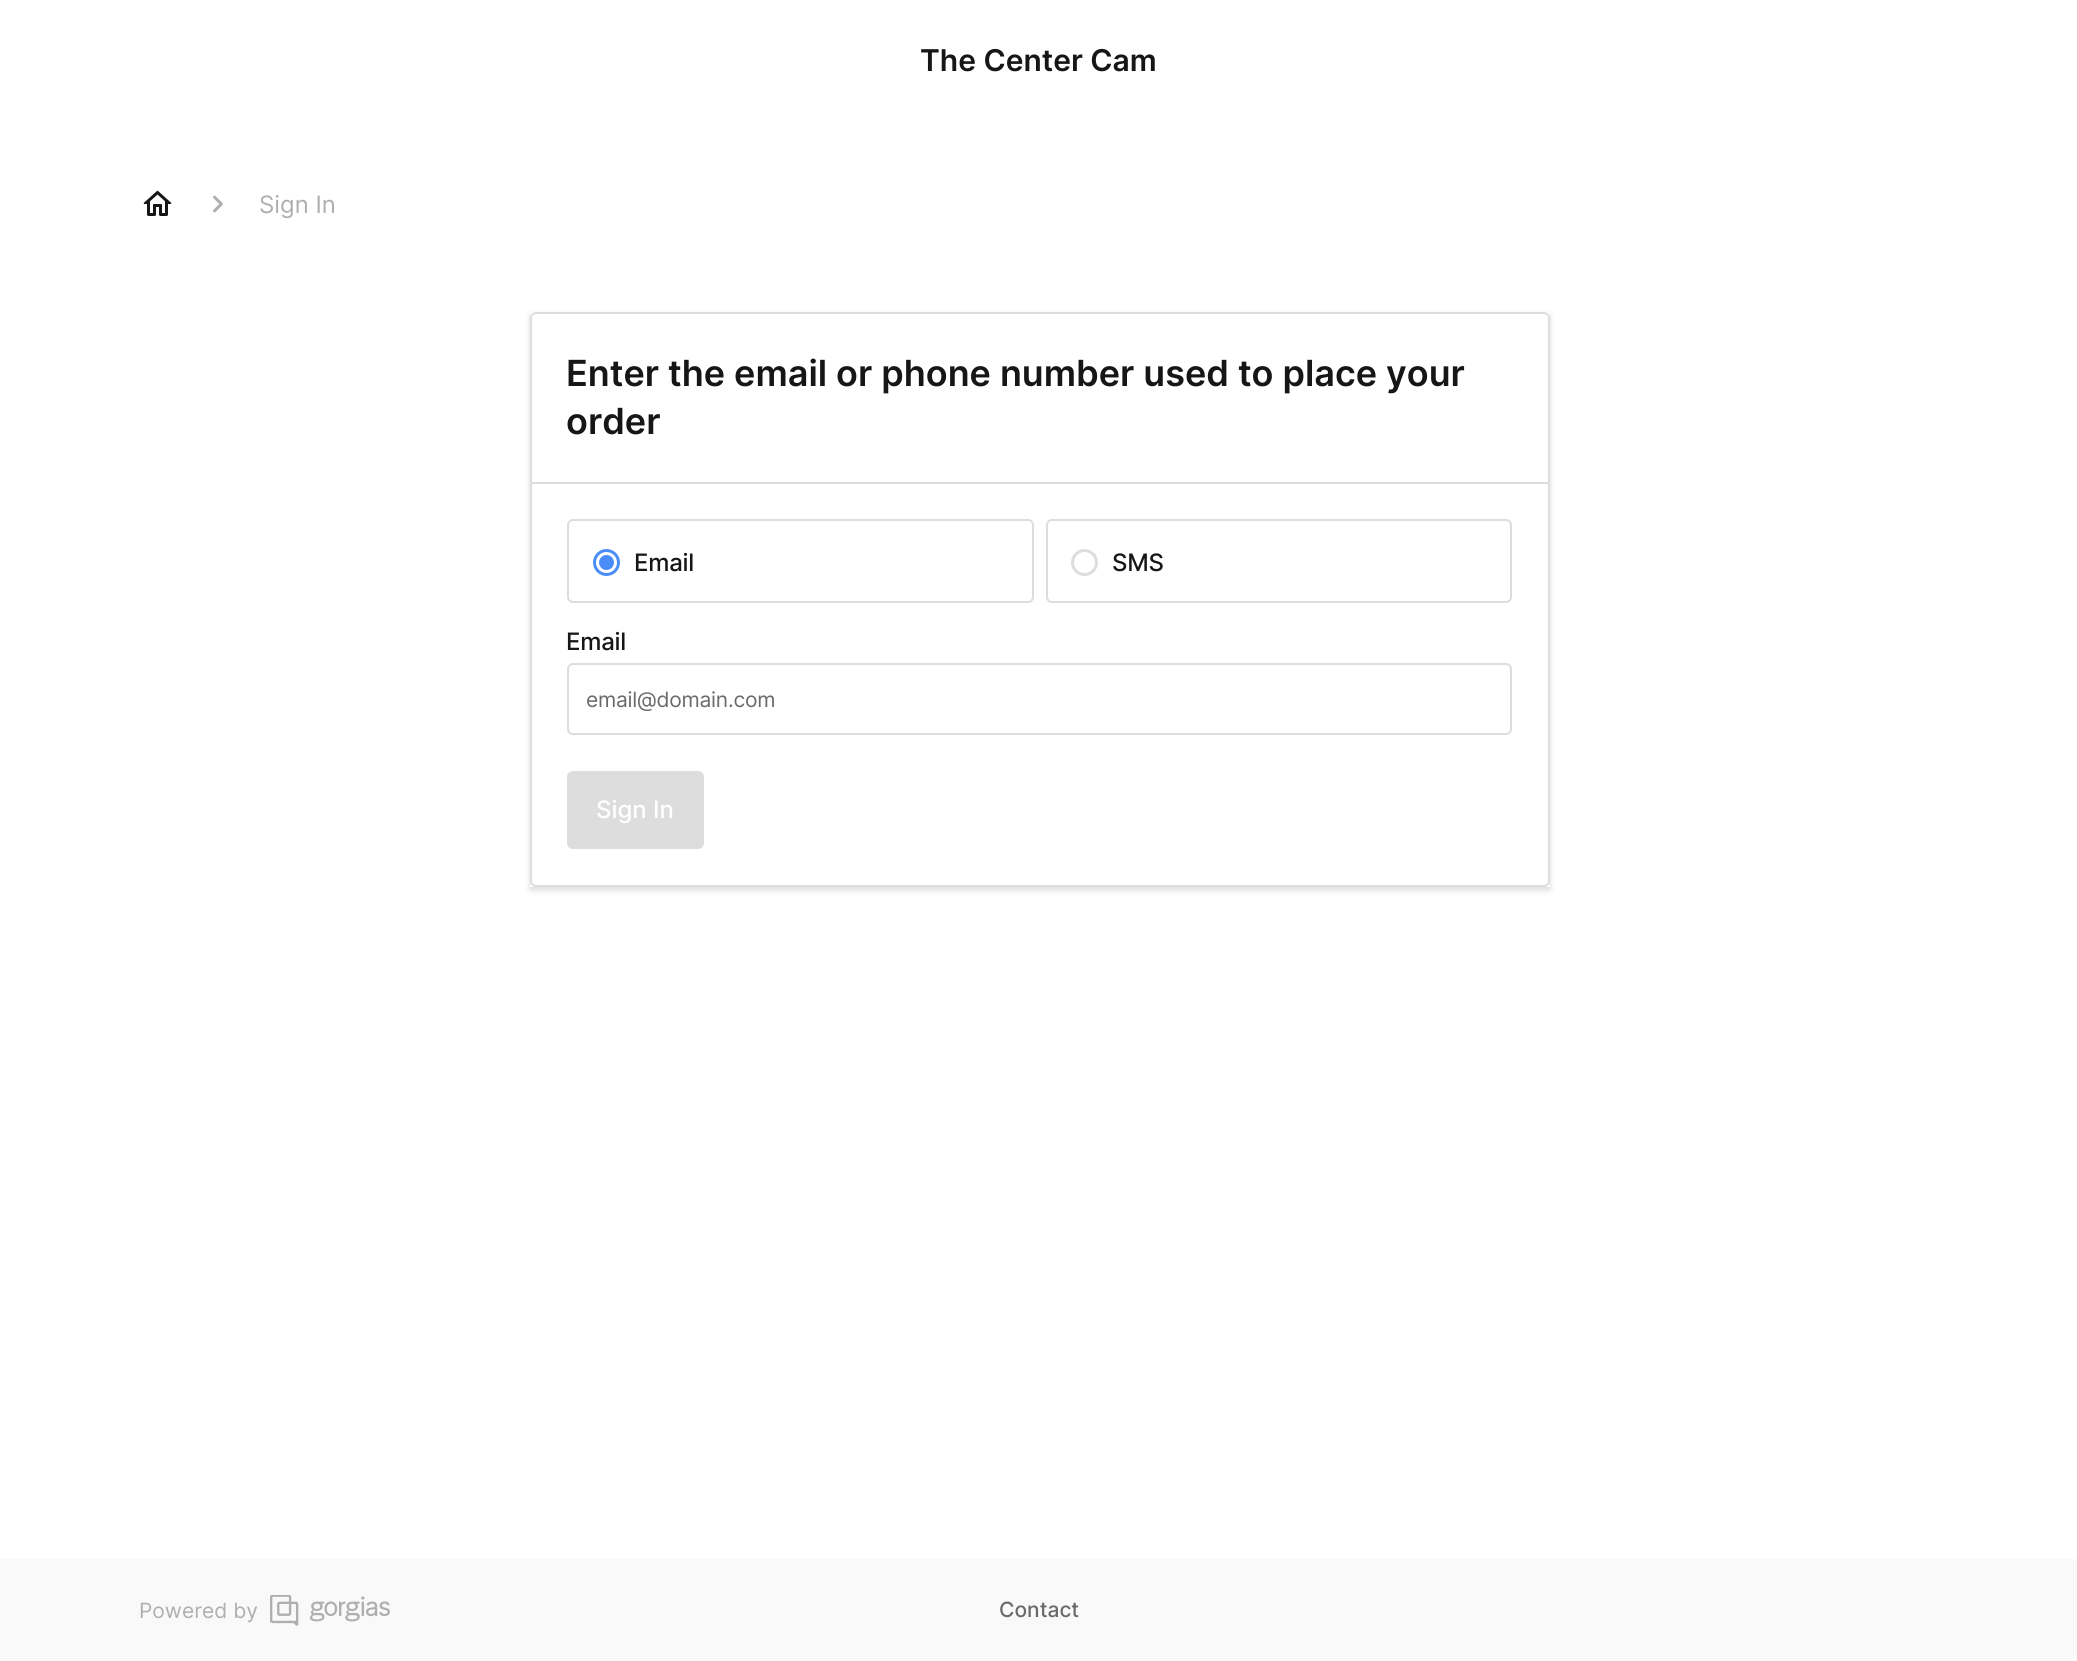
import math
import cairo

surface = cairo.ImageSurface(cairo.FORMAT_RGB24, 2077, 1661)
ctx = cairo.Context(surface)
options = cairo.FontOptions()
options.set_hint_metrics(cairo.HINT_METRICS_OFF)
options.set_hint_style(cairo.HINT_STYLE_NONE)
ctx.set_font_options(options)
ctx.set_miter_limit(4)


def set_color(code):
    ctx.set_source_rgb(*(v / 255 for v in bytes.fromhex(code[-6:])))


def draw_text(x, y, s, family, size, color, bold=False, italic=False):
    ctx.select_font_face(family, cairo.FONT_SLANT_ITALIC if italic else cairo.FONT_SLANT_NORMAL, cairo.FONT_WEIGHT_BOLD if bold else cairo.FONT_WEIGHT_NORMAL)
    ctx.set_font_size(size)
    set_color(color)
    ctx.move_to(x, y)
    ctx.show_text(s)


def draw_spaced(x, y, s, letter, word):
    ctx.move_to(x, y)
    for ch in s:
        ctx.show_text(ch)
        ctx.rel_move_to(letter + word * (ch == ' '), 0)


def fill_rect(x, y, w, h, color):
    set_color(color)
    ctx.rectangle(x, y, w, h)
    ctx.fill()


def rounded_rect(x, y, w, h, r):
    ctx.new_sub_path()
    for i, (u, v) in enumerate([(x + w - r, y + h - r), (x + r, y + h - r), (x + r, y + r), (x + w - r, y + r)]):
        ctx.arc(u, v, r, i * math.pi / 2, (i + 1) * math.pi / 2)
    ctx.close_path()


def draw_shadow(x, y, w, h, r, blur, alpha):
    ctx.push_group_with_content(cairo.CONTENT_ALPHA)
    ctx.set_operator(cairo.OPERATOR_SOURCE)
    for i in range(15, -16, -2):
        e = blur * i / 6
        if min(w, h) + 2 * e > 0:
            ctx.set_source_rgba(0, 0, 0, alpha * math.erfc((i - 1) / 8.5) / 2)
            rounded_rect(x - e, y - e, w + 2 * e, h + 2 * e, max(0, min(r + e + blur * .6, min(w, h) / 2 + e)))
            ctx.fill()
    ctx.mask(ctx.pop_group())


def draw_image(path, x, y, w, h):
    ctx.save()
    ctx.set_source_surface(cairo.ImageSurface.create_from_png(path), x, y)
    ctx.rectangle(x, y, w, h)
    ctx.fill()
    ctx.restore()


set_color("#ffffff")
ctx.paint()
draw_text(920, 71, "The Center Cam", "Inter SemiBold", 30, "#161616")
draw_image("assets/img1.png", 143, 190, 29, 26)
draw_image("assets/img2.png", 213, 195, 10, 18)
draw_text(259, 213, "Sign In", "Inter", 24, "#afafaf")
ctx.save()
ctx.set_fill_rule(cairo.FILL_RULE_EVEN_ODD)
ctx.new_path()
ctx.move_to(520, 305)
ctx.line_to(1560, 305)
ctx.line_to(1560, 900)
ctx.line_to(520, 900)
ctx.close_path()
ctx.move_to(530, 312)
ctx.line_to(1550, 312)
ctx.line_to(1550, 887)
ctx.line_to(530, 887)
ctx.close_path()
ctx.clip()
set_color("#161616")
draw_shadow(530, 315, 1020, 575, 0, 3, 0.16)
ctx.restore()
set_color("#ffffff")
rounded_rect(531, 313, 1018, 573, 5)
ctx.fill_preserve()
set_color("#dddddd")
ctx.stroke()
fill_rect(531, 482, 1017, 2, "#dddddd")
draw_text(566, 386, "Enter the email or phone number used to place your", "Inter SemiBold", 36, "#161616")
draw_text(566, 434, "order", "Inter SemiBold", 36, "#161616")
rounded_rect(568, 520, 465, 82, 5)
set_color("#dddddd")
ctx.stroke()
ctx.arc(606.5, 562.5, 12, 0, 2 * math.pi)
set_color("#4a8df9")
ctx.set_line_width(3)
ctx.stroke()
ctx.select_font_face("Inter Medium")
ctx.set_font_size(24)
set_color("#161616")
draw_spaced(634, 571, "Email", -0.25, 0)
set_color("#4a8df9")
ctx.new_path()
ctx.arc(606.5, 562.5, 7.5, 0, 2 * math.pi)
ctx.fill()
rounded_rect(1047, 520, 464, 82, 5)
set_color("#dddddd")
ctx.set_line_width(2)
ctx.stroke()
ctx.arc(1084.5, 562.5, 12, 0, 2 * math.pi)
ctx.set_line_width(3)
ctx.stroke()
set_color("#161616")
draw_spaced(1112, 571, "SMS", -0.25, 0)
draw_spaced(566, 650, "Email", -0.25, 0)
rounded_rect(568, 664, 943, 70, 5)
set_color("#dddddd")
ctx.set_line_width(2)
ctx.stroke()
ctx.save()
ctx.rectangle(587, 686, 906, 25)
ctx.clip()
ctx.select_font_face("Inter")
ctx.set_font_size(21)
set_color("#6a6a6a")
draw_spaced(586, 707, "email@domain.com", -0.25, 0)
ctx.restore()
rounded_rect(567, 771, 137, 78, 6)
ctx.fill()
draw_text(596, 818, "Sign In", "Inter Medium", 24, "#ffffff")
fill_rect(0, 1559, 2077, 102, "#f9f9f9")
draw_text(139, 1618, "Powered by", "Inter", 21, "#afafaf")
draw_image("assets/img3.png", 270, 1595, 120, 31)
draw_text(999, 1617, "Contact", "Inter Medium", 21, "#6a6a6a")
surface.write_to_png("output.png")
